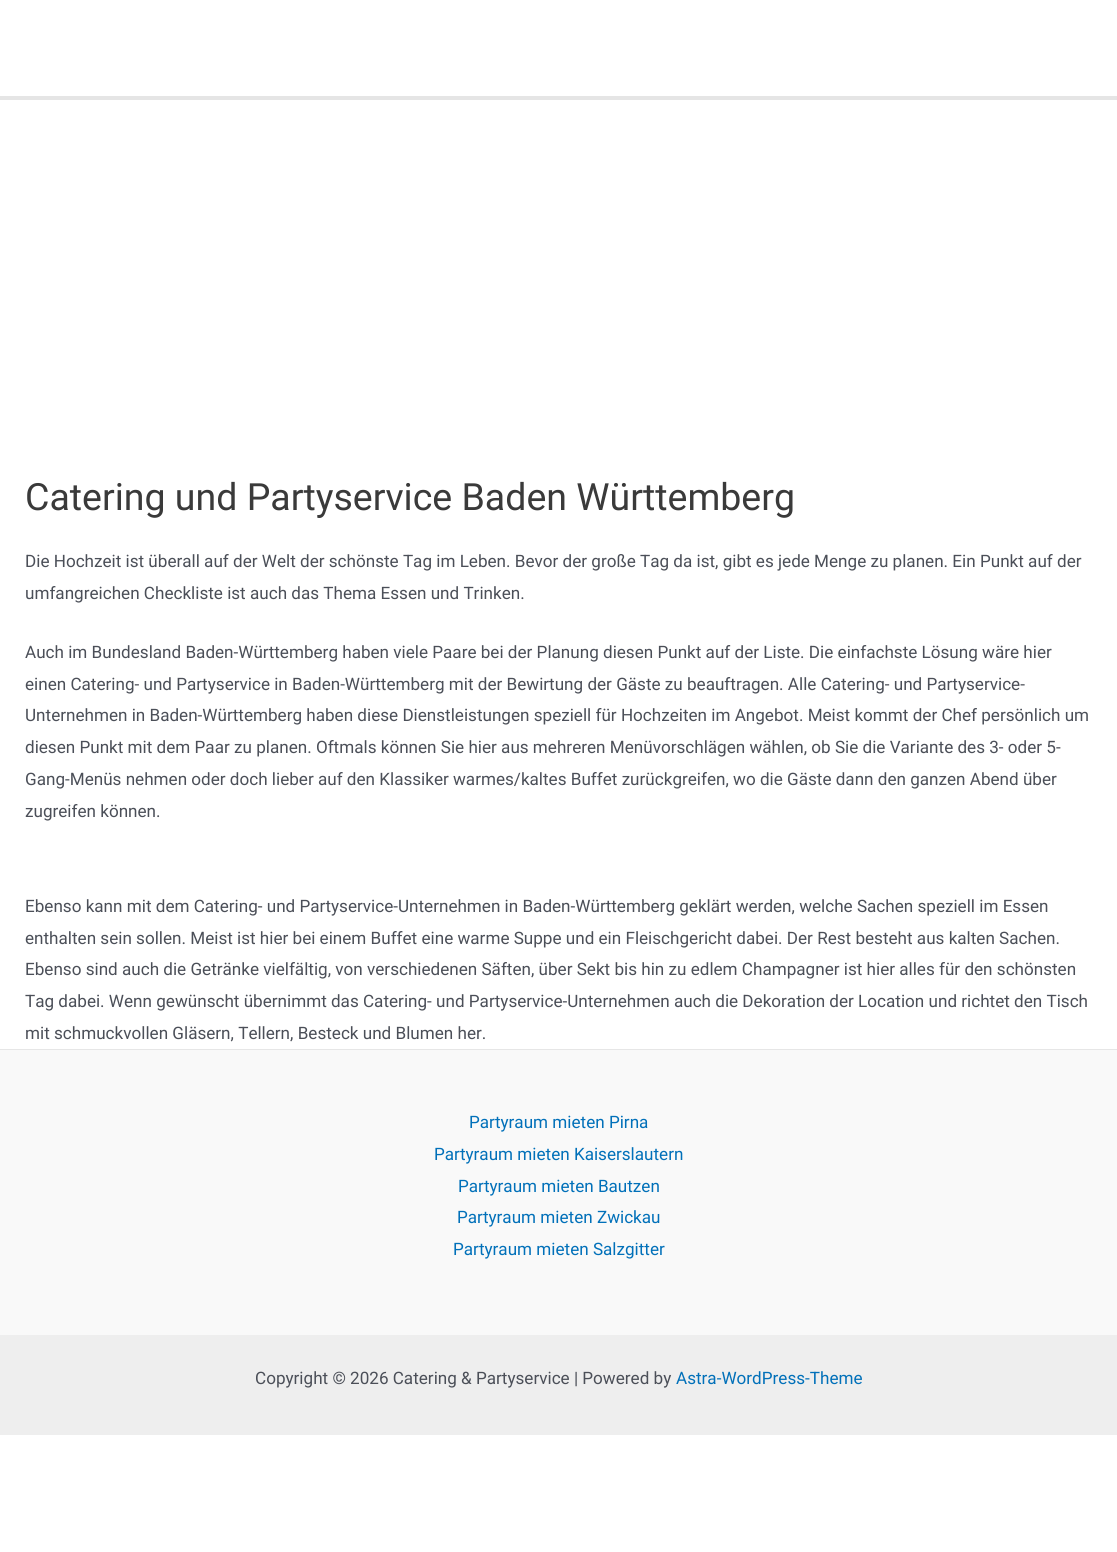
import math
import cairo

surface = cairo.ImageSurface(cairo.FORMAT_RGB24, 1117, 1552)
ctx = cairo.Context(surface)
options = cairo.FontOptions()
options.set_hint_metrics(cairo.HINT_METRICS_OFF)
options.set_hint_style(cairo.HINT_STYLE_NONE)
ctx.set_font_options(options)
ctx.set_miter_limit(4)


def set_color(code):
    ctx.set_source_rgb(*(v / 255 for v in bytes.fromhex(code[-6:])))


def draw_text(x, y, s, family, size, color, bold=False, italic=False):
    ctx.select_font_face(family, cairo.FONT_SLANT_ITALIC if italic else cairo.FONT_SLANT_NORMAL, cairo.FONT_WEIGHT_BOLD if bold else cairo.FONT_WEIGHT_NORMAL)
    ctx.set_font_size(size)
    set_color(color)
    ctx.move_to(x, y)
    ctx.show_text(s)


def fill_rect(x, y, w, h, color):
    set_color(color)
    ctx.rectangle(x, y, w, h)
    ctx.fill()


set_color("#ffffff")
ctx.paint()
fill_rect(0, 96, 1117, 4, "#e5e5e5")
draw_text(25, 510, "Catering und Partyservice Baden Württemberg", "Roboto", 37.5, "#3a3a3a")
draw_text(25, 567, "Die Hochzeit ist überall auf der Welt der schönste Tag im Leben. Bevor der große Tag da ist, gibt es jede Menge zu planen. Ein Punkt auf der", "Roboto", 17.1, "#4b4f58")
draw_text(25, 599, "umfangreichen Checkliste ist auch das Thema Essen und Trinken.", "Roboto", 17.1, "#4b4f58")
draw_text(25, 658, "Auch im Bundesland Baden-Württemberg haben viele Paare bei der Planung diesen Punkt auf der Liste. Die einfachste Lösung wäre hier", "Roboto", 17.1, "#4b4f58")
draw_text(25, 690, "einen Catering- und Partyservice in Baden-Württemberg mit der Bewirtung der Gäste zu beauftragen. Alle Catering- und Partyservice-", "Roboto", 17.1, "#4b4f58")
draw_text(25, 721, "Unternehmen in Baden-Württemberg haben diese Dienstleistungen speziell für Hochzeiten im Angebot. Meist kommt der Chef persönlich um", "Roboto", 17.1, "#4b4f58")
draw_text(25, 753, "diesen Punkt mit dem Paar zu planen. Oftmals können Sie hier aus mehreren Menüvorschlägen wählen, ob Sie die Variante des 3- oder 5-", "Roboto", 17.1, "#4b4f58")
draw_text(25, 785, "Gang-Menüs nehmen oder doch lieber auf den Klassiker warmes/kaltes Buffet zurückgreifen, wo die Gäste dann den ganzen Abend über", "Roboto", 17.1, "#4b4f58")
draw_text(25, 817, "zugreifen können.", "Roboto", 17.1, "#4b4f58")
draw_text(25, 912, "Ebenso kann mit dem Catering- und Partyservice-Unternehmen in Baden-Württemberg geklärt werden, welche Sachen speziell im Essen", "Roboto", 17.1, "#4b4f58")
draw_text(25, 944, "enthalten sein sollen. Meist ist hier bei einem Buffet eine warme Suppe und ein Fleischgericht dabei. Der Rest besteht aus kalten Sachen.", "Roboto", 17.1, "#4b4f58")
draw_text(25, 975, "Ebenso sind auch die Getränke vielfältig, von verschiedenen Säften, über Sekt bis hin zu edlem Champagner ist hier alles für den schönsten", "Roboto", 17.1, "#4b4f58")
draw_text(25, 1007, "Tag dabei. Wenn gewünscht übernimmt das Catering- und Partyservice-Unternehmen auch die Dekoration der Location und richtet den Tisch", "Roboto", 17.1, "#4b4f58")
draw_text(25, 1039, "mit schmuckvollen Gläsern, Tellern, Besteck und Blumen her.", "Roboto", 17.1, "#4b4f58")
fill_rect(0, 1050, 1117, 285, "#f9f9f9")
fill_rect(0, 1049, 1117, 1, "#e6e6e6")
draw_text(469, 1128, "Partyraum mieten Pirna", "Roboto", 17.1, "#0170b9")
draw_text(434, 1160, "Partyraum mieten Kaiserslautern", "Roboto", 17.1, "#0170b9")
draw_text(458, 1192, "Partyraum mieten Bautzen", "Roboto", 17.1, "#0170b9")
draw_text(457, 1223, "Partyraum mieten Zwickau", "Roboto", 17.1, "#0170b9")
draw_text(453, 1255, "Partyraum mieten Salzgitter", "Roboto", 17.1, "#0170b9")
fill_rect(0, 1335, 1117, 100, "#eeeeee")
draw_text(255, 1384, "Copyright © 2026 Catering & Partyservice | Powered by", "Roboto", 17.1, "#4b4f58")
draw_text(676, 1384, "Astra-WordPress-Theme", "Roboto", 17.1, "#0170b9")
surface.write_to_png("output.png")
